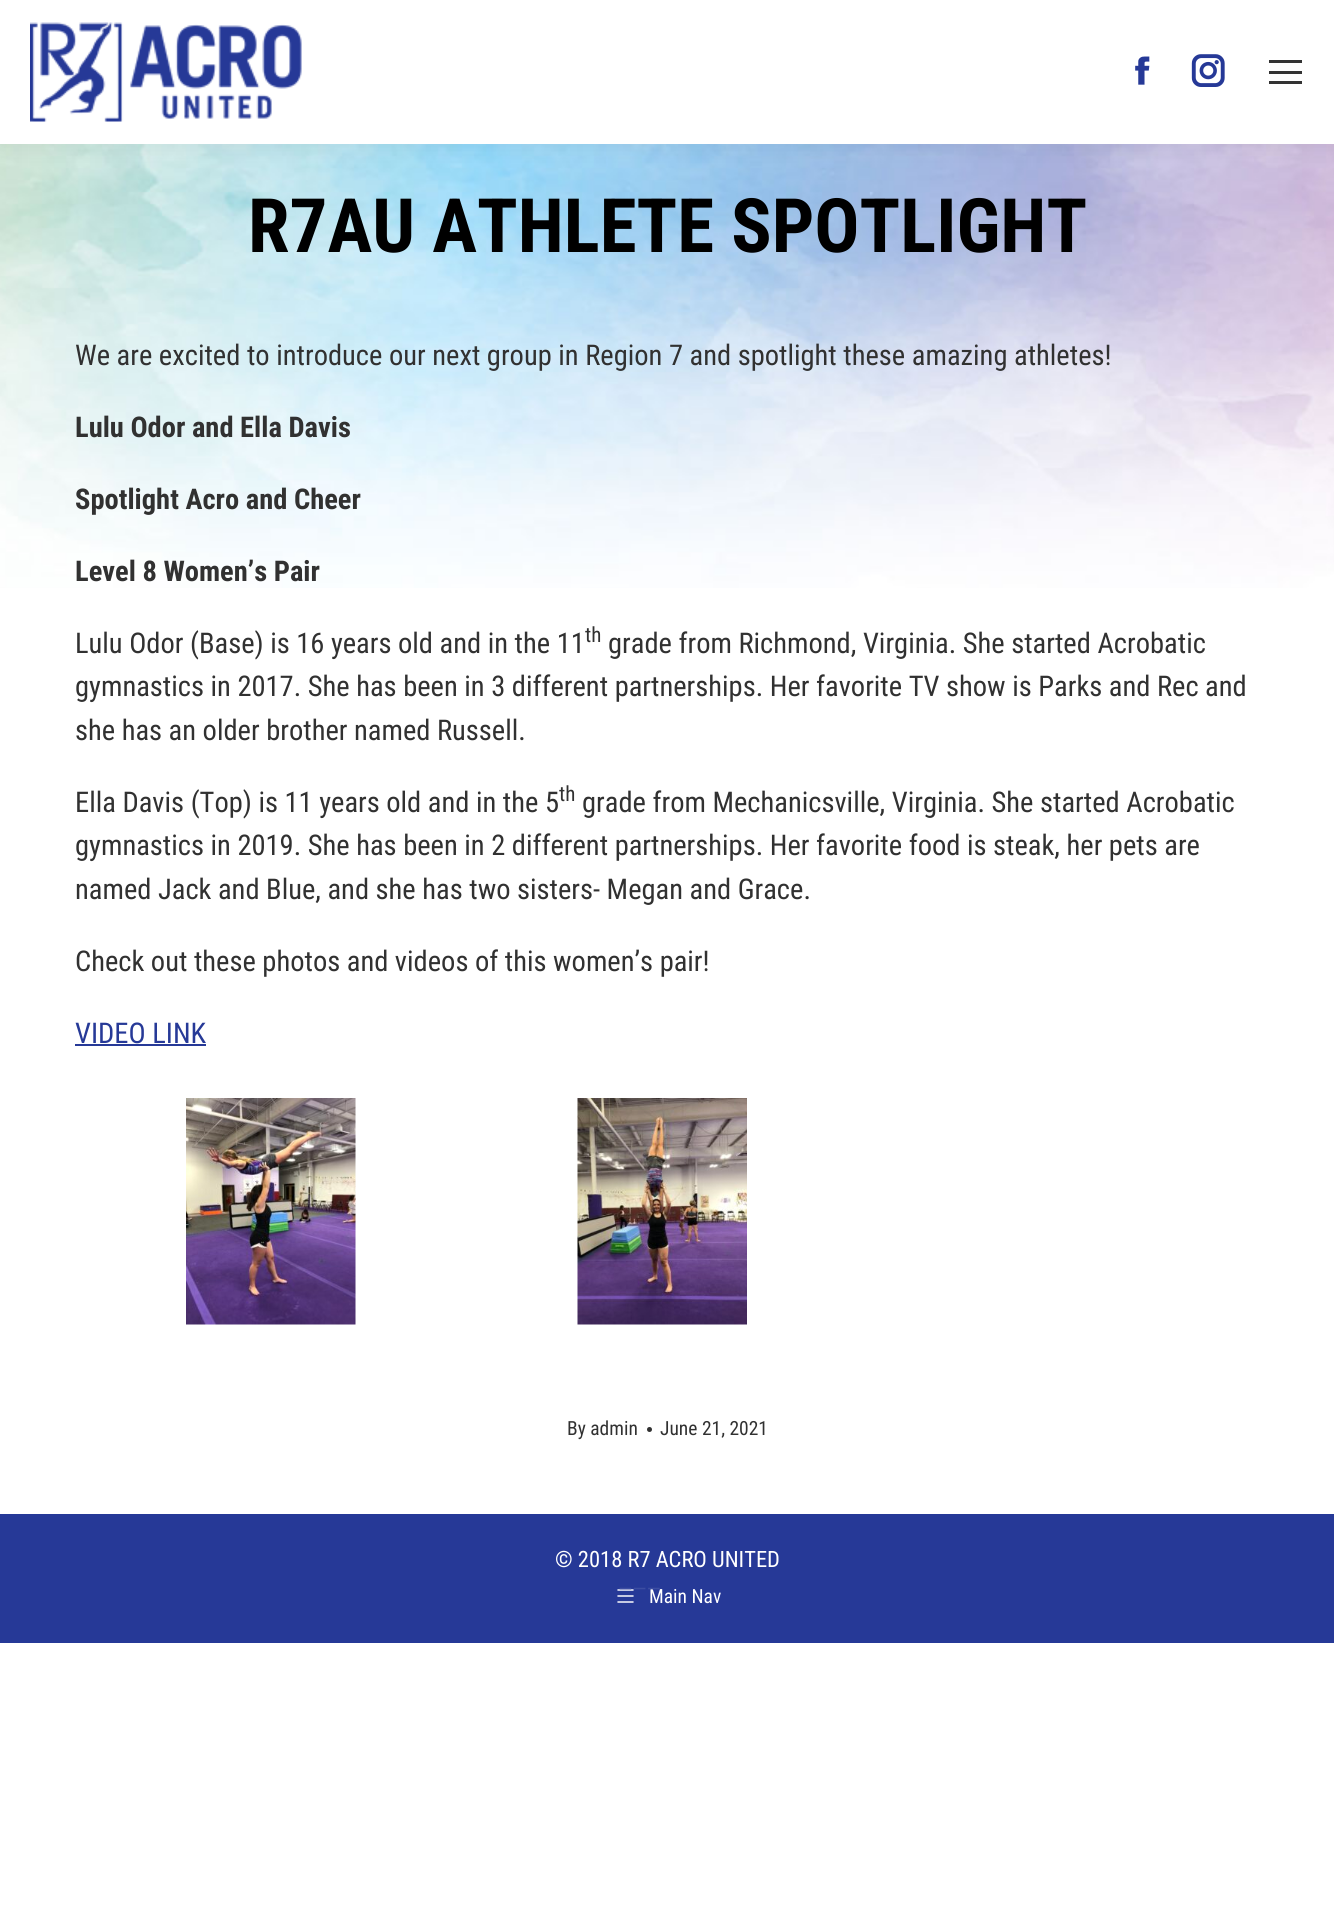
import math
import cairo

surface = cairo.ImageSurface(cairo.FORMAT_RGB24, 1334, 1918)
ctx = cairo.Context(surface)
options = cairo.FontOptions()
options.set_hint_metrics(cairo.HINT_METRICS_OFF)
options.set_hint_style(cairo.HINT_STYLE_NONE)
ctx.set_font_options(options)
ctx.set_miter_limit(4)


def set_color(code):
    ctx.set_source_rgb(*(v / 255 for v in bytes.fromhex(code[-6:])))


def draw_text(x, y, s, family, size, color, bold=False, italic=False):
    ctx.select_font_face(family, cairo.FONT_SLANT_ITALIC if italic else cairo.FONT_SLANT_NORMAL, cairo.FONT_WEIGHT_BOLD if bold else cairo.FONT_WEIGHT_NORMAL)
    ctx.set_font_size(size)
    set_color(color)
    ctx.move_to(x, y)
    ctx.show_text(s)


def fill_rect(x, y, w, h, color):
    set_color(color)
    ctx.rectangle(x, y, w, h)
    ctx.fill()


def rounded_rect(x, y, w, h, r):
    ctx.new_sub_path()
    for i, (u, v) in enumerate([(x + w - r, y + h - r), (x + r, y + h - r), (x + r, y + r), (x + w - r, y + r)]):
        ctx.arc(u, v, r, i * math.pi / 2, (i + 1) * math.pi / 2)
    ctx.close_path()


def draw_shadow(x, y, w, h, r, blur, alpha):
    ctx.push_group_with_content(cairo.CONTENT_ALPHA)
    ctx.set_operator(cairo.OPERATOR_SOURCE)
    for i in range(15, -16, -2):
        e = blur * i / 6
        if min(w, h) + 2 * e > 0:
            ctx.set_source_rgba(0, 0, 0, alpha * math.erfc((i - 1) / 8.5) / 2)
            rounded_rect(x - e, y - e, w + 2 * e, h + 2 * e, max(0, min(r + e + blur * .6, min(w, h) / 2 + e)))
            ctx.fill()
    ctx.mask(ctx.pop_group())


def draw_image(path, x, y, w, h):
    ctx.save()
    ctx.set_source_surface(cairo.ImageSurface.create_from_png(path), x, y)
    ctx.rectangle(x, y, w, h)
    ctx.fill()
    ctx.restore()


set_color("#ffffff")
ctx.paint()
draw_image("assets/img4.png", 0, 144, 1334, 444)
set_color("#000000")
draw_shadow(-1, -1, 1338, 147, 0, 11, 0.07)
fill_rect(0, 0, 1334, 144, "#ffffff")
draw_image("assets/img1.png", 30, 22, 272, 100)
draw_image("assets/img2.png", 1135, 56, 15, 29)
draw_image("assets/img3.png", 1191, 54, 34, 33)
fill_rect(1269, 60, 33, 3, "#333333")
fill_rect(1269, 71, 33, 3, "#333333")
fill_rect(1269, 81, 33, 3, "#333333")
draw_text(248, 252, "R7AU ATHLETE SPOTLIGHT", "Roboto Condensed", 75, "#000000", bold=True)
draw_text(75, 365, "We are excited to introduce our next group in Region 7 and spotlight these amazing athletes!", "Roboto Condensed", 28.5, "#313131")
draw_text(75, 437, "Lulu Odor and Ella Davis", "Roboto Condensed", 28.5, "#313131", bold=True)
draw_text(75, 509, "Spotlight Acro and Cheer", "Roboto Condensed", 28.5, "#313131", bold=True)
draw_text(75, 581, "Level 8 Women’s Pair", "Roboto Condensed", 28.5, "#313131", bold=True)
draw_text(75, 653, "Lulu Odor (Base) is 16 years old and in the 11", "Roboto Condensed", 28.5, "#313131")
draw_text(585, 642, "th", "Roboto Condensed", 21, "#313131")
draw_text(608, 653, "grade from Richmond, Virginia. She started Acrobatic", "Roboto Condensed", 28.5, "#313131")
draw_text(75, 696, "gymnastics in 2017. She has been in 3 different partnerships. Her favorite TV show is Parks and Rec and", "Roboto Condensed", 28.5, "#313131")
draw_text(75, 740, "she has an older brother named Russell.", "Roboto Condensed", 28.5, "#313131")
draw_text(75, 812, "Ella Davis (Top) is 11 years old and in the 5", "Roboto Condensed", 28.5, "#313131")
draw_text(559, 801, "th", "Roboto Condensed", 21, "#313131")
draw_text(582, 812, "grade from Mechanicsville, Virginia. She started Acrobatic", "Roboto Condensed", 28.5, "#313131")
draw_text(75, 855, "gymnastics in 2019. She has been in 2 different partnerships. Her favorite food is steak, her pets are", "Roboto Condensed", 28.5, "#313131")
draw_text(75, 899, "named Jack and Blue, and she has two sisters- Megan and Grace.", "Roboto Condensed", 28.5, "#313131")
draw_text(75, 971, "Check out these photos and videos of this women’s pair!", "Roboto Condensed", 28.5, "#313131")
draw_text(75, 1043, "VIDEO LINK", "Roboto Condensed", 28.5, "#263997")
fill_rect(75, 1044, 131, 2, "#263997")
draw_image("assets/img5.png", 186, 1098, 170, 227)
draw_image("assets/img6.png", 577, 1098, 170, 227)
draw_text(567, 1435, "By admin", "Roboto Condensed", 19.5, "#313131")
ctx.new_path()
ctx.arc(649.5, 1429.5, 2.5, 0, 2 * math.pi)
ctx.fill()
draw_text(660, 1435, "June 21, 2021", "Roboto Condensed", 19.5, "#313131")
fill_rect(0, 1514, 1334, 129, "#263997")
draw_text(555, 1567, "© 2018 R7 ACRO UNITED", "Roboto Condensed", 22.5, "#ffffff")
draw_text(649, 1603, "Main Nav", "Roboto Condensed", 19.5, "#ffffff")
draw_image("assets/img7.png", 617, 1589, 17, 14)
draw_text(618, 1596, "———", "Roboto Condensed", 21, "#3c4da2")
surface.write_to_png("output.png")
